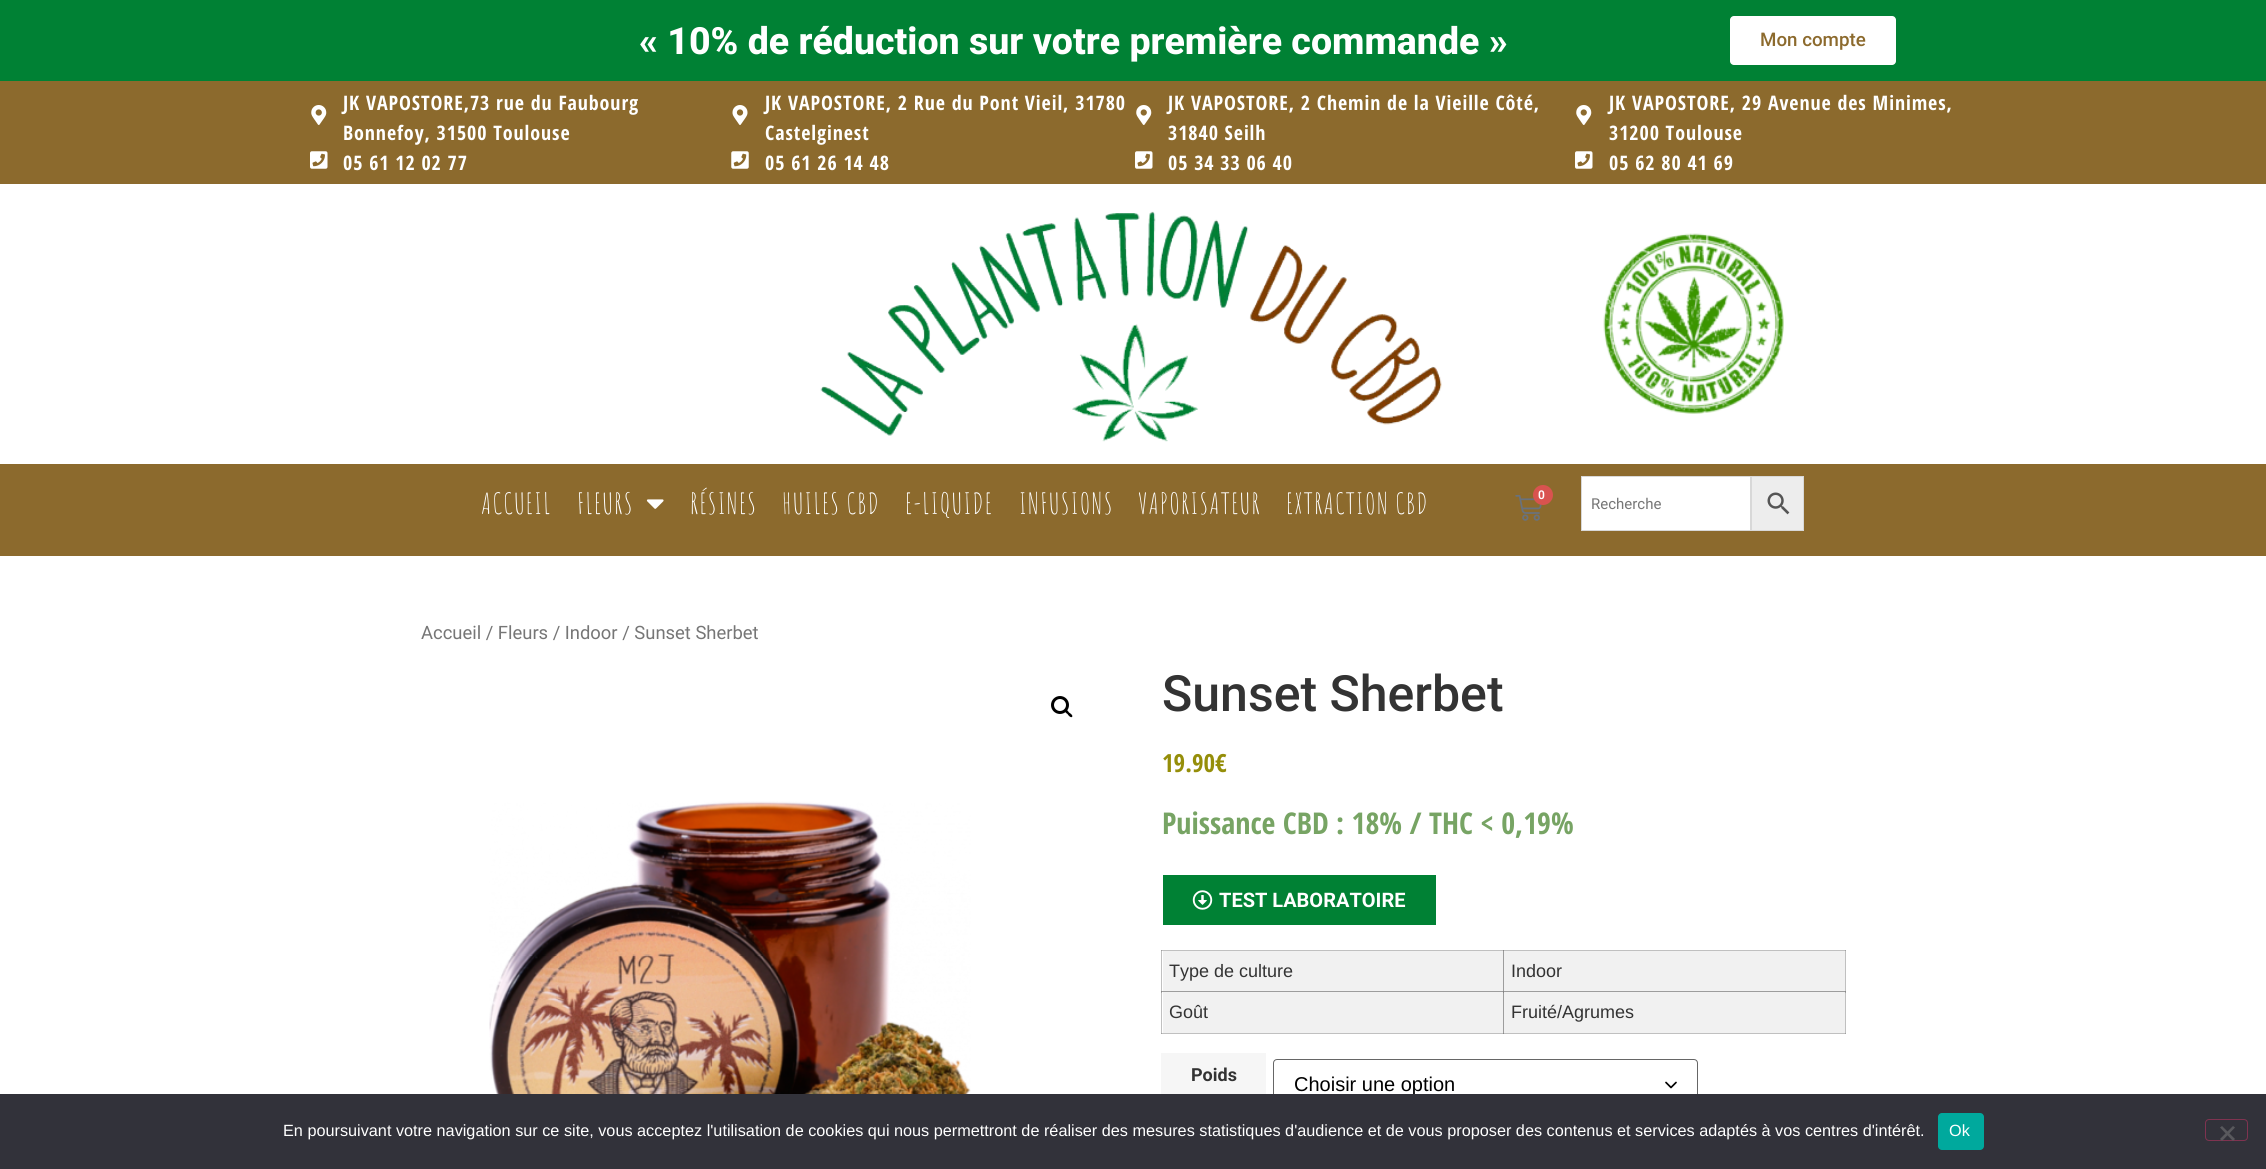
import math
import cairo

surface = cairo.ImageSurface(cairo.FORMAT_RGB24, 2266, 1169)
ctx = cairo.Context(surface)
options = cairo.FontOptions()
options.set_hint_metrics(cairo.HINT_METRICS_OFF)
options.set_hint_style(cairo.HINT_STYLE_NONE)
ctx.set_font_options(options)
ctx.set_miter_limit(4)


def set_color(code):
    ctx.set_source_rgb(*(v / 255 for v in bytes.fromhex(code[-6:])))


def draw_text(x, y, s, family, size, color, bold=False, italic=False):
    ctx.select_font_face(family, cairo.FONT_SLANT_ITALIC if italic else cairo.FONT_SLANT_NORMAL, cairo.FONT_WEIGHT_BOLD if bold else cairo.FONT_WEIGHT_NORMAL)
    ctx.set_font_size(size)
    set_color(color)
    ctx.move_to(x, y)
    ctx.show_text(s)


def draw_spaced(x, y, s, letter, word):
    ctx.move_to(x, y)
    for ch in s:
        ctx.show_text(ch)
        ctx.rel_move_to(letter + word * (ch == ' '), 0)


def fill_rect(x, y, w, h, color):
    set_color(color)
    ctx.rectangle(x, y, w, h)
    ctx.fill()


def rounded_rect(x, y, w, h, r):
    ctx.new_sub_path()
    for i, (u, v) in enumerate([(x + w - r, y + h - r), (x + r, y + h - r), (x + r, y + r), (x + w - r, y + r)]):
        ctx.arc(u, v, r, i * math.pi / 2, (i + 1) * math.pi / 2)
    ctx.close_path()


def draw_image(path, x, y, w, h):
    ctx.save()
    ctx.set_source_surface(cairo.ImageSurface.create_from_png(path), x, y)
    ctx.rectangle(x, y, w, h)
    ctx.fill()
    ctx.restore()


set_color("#ffffff")
ctx.paint()
fill_rect(1161, 950, 1, 84, "#c0c0c0")
fill_rect(1161, 950, 343, 1, "#c0c0c0")
fill_rect(1161, 950, 1, 1, "#a0a0a0")
fill_rect(1845, 950, 1, 43, "#c0c0c0")
fill_rect(1161, 991, 1, 2, "#a0a0a0")
fill_rect(1161, 1033, 685, 1, "#c0c0c0")
fill_rect(1161, 1033, 1, 1, "#a0a0a0")
fill_rect(1161, 991, 2, 1, "#a0a0a0")
fill_rect(1161, 991, 1, 1, "#888888")
fill_rect(1503, 1033, 1, 1, "#888888")
fill_rect(1845, 991, 1, 43, "#c0c0c0")
fill_rect(1845, 991, 1, 2, "#a0a0a0")
fill_rect(1845, 1033, 1, 1, "#a0a0a0")
fill_rect(1845, 991, 1, 1, "#888888")
fill_rect(0, 0, 2266, 81, "#008134")
draw_text(639, 54, "« 10% de réduction sur votre première commande »", "Roboto ExtraBold", 37.5, "#ffffff")
rounded_rect(1730, 16, 166, 49, 4)
ctx.fill()
draw_text(1760, 46, "Mon compte", "Roboto Medium", 18.75, "#8c6a2d")
fill_rect(0, 81, 2266, 103, "#8c6a2d")
draw_image("assets/img1.png", 311, 105, 16, 20)
ctx.select_font_face("Open Sans Condensed", cairo.FONT_SLANT_NORMAL, cairo.FONT_WEIGHT_BOLD)
ctx.set_font_size(20)
set_color("#ffffff")
draw_spaced(343, 110, "JK VAPOSTORE,73 rue du Faubourg", 0.9, 0)
draw_spaced(343, 140, "Bonnefoy, 31500 Toulouse", 0.9, 0)
draw_image("assets/img2.png", 310, 151, 18, 18)
draw_spaced(343, 170, "05 61 12 02 77", 0.9, 0)
draw_image("assets/img3.png", 732, 105, 16, 20)
draw_spaced(765, 110, "JK VAPOSTORE, 2 Rue du Pont Vieil, 31780", 0.9, 0)
draw_spaced(765, 140, "Castelginest", 0.9, 0)
draw_image("assets/img4.png", 731, 151, 18, 18)
draw_spaced(765, 170, "05 61 26 14 48", 0.9, 0)
draw_image("assets/img1.png", 1136, 105, 16, 20)
draw_spaced(1168, 110, "JK VAPOSTORE, 2 Chemin de la Vieille Côté,", 0.9, 0)
draw_spaced(1168, 140, "31840 Seilh", 0.9, 0)
draw_image("assets/img2.png", 1135, 151, 18, 18)
draw_spaced(1168, 170, "05 34 33 06 40", 0.9, 0)
draw_image("assets/img1.png", 1576, 105, 16, 20)
draw_spaced(1609, 110, "JK VAPOSTORE, 29 Avenue des Minimes,", 0.9, 0)
draw_spaced(1609, 140, "31200 Toulouse", 0.9, 0)
draw_image("assets/img2.png", 1575, 151, 18, 18)
draw_spaced(1609, 170, "05 62 80 41 69", 0.9, 0)
draw_image("assets/img5.png", 820, 211, 622, 231)
draw_image("assets/img6.png", 1603, 233, 181, 181)
fill_rect(0, 464, 2266, 92, "#8c6a2d")
ctx.select_font_face("Amatic SC")
ctx.set_font_size(28.75)
set_color("#ffffff")
draw_spaced(481, 514, "ACCUEIL", 1.25, 0)
draw_spaced(577, 514, "FLEURS", 1.25, 0)
draw_image("assets/img7.png", 646, 499, 18, 10)
draw_spaced(690, 514, "RÉSINES", 1.25, 0)
draw_spaced(782, 514, "HUILES CBD", 1.25, 0)
draw_spaced(905, 514, "E-LIQUIDE", 1.25, 0)
draw_spaced(1019, 514, "INFUSIONS", 1.25, 0)
draw_spaced(1138, 514, "VAPORISATEUR", 1.25, 0)
draw_spaced(1286, 514, "EXTRACTION CBD", 1.25, 0)
draw_image("assets/img8.png", 1515, 495, 27, 26)
set_color("#d9534f")
ctx.arc(1543, 495, 10, 0, 2 * math.pi)
ctx.fill()
draw_text(1538, 499, "0", "Roboto SemiBold", 12, "#ffffff")
ctx.rectangle(1581.5, 476.5, 169, 54)
ctx.fill_preserve()
set_color("#d8d8d8")
ctx.set_line_width(1)
ctx.stroke()
draw_text(1591, 509, "Recherche", "Roboto", 15, "#767676")
set_color("#ededed")
ctx.rectangle(1751.5, 476.5, 52, 54)
ctx.fill_preserve()
set_color("#d8d8d8")
ctx.stroke()
draw_image("assets/img9.png", 1767, 492, 23, 23)
draw_text(421, 639, "Accueil / Fleurs / Indoor / Sunset Sherbet", "Roboto", 18.4, "#767676")
ctx.new_path()
ctx.arc(1060, 705, 7.5, 0, 2 * math.pi)
set_color("#000000")
ctx.set_line_width(3)
ctx.stroke()
ctx.new_path()
ctx.move_to(1065, 709.5)
ctx.curve_to(1066, 708.5, 1068.5, 711.5, 1069, 712.5)
ctx.curve_to(1070, 713, 1073.5, 715.5, 1072, 717)
ctx.curve_to(1070.5, 718, 1068, 715, 1067.5, 714)
ctx.curve_to(1066.5, 713.5, 1063.5, 711, 1065, 709.5)
ctx.close_path()
ctx.fill()
draw_image("assets/img10.png", 489, 801, 482, 293)
draw_text(1162, 711, "Sunset Sherbet", "Roboto Medium", 50, "#333333")
draw_text(1162, 772, "19.90€", "Open Sans Condensed", 25, "#958e09", bold=True)
draw_text(1162, 834, "Puissance CBD : 18% / THC < 0,19%", "Open Sans Condensed", 30, "#77a464", bold=True)
fill_rect(1163, 875, 273, 50, "#008134")
draw_image("assets/img11.png", 1192, 890, 21, 20)
draw_text(1219, 907, "TEST LABORATOIRE", "Roboto", 20, "#ffffff", bold=True)
fill_rect(1163, 951, 340, 82, "#f1f1f1")
fill_rect(1503, 951, 1, 82, "#9d9d9d")
fill_rect(1163, 991, 341, 1, "#9d9d9d")
fill_rect(1503, 991, 1, 2, "#888888")
fill_rect(1503, 991, 1, 1, "#818181")
draw_text(1169, 977, "Type de culture", "Liberation Sans", 18, "#333333")
fill_rect(1504, 951, 341, 82, "#f1f1f1")
fill_rect(1504, 991, 341, 1, "#9d9d9d")
fill_rect(1503, 950, 343, 1, "#c0c0c0")
fill_rect(1503, 950, 1, 1, "#888888")
fill_rect(1845, 950, 1, 1, "#a0a0a0")
draw_text(1511, 977, "Indoor", "Liberation Sans", 18, "#333333")
draw_text(1169, 1018, "Goût", "Liberation Sans", 18, "#333333")
draw_text(1511, 1018, "Fruité/Agrumes", "Liberation Sans", 18, "#333333")
fill_rect(1161, 1053, 105, 41, "#f6f6f6")
draw_text(1191, 1081, "Poids", "Roboto", 18, "#333333", bold=True)
ctx.new_path()
ctx.move_to(1666, 1082.5)
ctx.line_to(1671, 1087.5)
ctx.line_to(1676, 1082.5)
set_color("#000000")
ctx.set_line_width(1.7)
ctx.set_line_cap(cairo.LINE_CAP_ROUND)
ctx.set_line_join(cairo.LINE_JOIN_ROUND)
ctx.stroke()
rounded_rect(1273.5, 1059.5, 424, 51, 3.5)
set_color("#666666")
ctx.set_line_width(1)
ctx.set_line_cap(cairo.LINE_CAP_BUTT)
ctx.set_line_join(cairo.LINE_JOIN_MITER)
ctx.stroke()
draw_text(1294, 1091, "Choisir une option", "Liberation Sans", 20, "#000000")
fill_rect(0, 1094, 2266, 75, "#32323a")
draw_text(283, 1136, "En poursuivant votre navigation sur ce site, vous acceptez l'utilisation de cookies qui nous permettront de réaliser des mesures statistiques d'audience et de vous proposer des contenus et services adaptés à vos centres d'intérêt.", "Liberation Sans", 16.25, "#ffffff")
set_color("#00a99d")
rounded_rect(1938, 1113, 46, 37, 4)
ctx.fill()
draw_text(1949, 1136, "Ok", "Liberation Sans", 16.25, "#ffffff")
rounded_rect(2205.5, 1119.5, 42, 21, 3.5)
set_color("#7f3350")
ctx.stroke()
set_color("#59595d")
ctx.new_path()
ctx.move_to(2233, 1126)
ctx.line_to(2235, 1127.5)
ctx.line_to(2222, 1141)
ctx.line_to(2220, 1139)
ctx.close_path()
ctx.fill()
ctx.new_path()
ctx.move_to(2220, 1127.5)
ctx.line_to(2222, 1126)
ctx.line_to(2235, 1139)
ctx.line_to(2233, 1141)
ctx.close_path()
ctx.fill()
surface.write_to_png("output.png")
